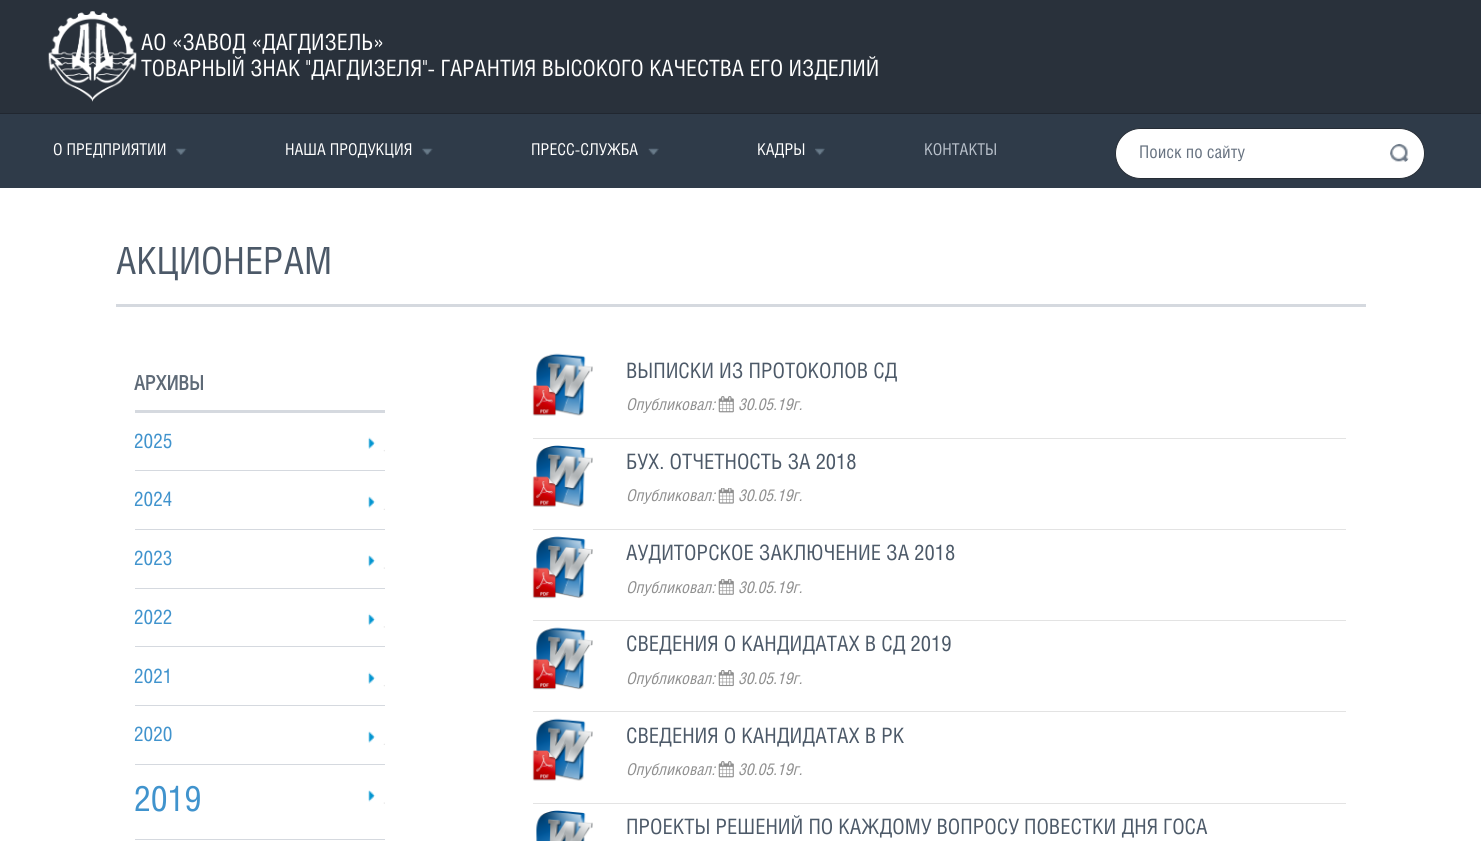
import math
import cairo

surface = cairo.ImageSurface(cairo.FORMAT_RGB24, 1481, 841)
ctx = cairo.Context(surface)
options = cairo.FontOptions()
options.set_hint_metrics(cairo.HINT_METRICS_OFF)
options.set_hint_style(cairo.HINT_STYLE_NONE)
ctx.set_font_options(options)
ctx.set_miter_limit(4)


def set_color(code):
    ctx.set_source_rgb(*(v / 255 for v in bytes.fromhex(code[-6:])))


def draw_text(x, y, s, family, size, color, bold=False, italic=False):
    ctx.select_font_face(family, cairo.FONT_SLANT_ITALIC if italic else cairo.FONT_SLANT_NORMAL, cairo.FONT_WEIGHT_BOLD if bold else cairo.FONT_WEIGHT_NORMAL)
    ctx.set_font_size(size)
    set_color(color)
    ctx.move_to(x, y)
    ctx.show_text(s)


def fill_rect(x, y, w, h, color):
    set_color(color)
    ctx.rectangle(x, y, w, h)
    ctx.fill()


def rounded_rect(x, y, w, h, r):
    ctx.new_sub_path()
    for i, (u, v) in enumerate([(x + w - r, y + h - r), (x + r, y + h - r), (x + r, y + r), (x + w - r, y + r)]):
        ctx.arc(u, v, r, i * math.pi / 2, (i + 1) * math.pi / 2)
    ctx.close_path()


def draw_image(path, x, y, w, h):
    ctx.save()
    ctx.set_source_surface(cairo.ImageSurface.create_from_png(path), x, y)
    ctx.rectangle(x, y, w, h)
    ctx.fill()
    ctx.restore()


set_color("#ffffff")
ctx.paint()
fill_rect(0, 0, 1481, 113, "#29313b")
draw_image("assets/img1.png", 48, 11, 89, 91)
draw_text(141, 50, "АО «ЗАВОД «ДАГДИЗЕЛЬ»", "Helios", 22.5, "#ffffff")
draw_text(141, 76, "ТОВАРНЫЙ ЗНАК \"ДАГДИЗЕЛЯ\"- ГАРАНТИЯ ВЫСОКОГО КАЧЕСТВА ЕГО ИЗДЕЛИЙ", "Helios", 22.5, "#ffffff")
fill_rect(0, 114, 1481, 74, "#2f3b49")
fill_rect(0, 113, 1481, 1, "#212730")
draw_text(53, 155, "О ПРЕДПРИЯТИИ", "Helios", 16.25, "#ffffff")
draw_image("assets/img2.png", 176, 148, 11, 7)
draw_text(285, 155, "НАША ПРОДУКЦИЯ", "Helios", 16.25, "#ffffff")
draw_image("assets/img3.png", 422, 148, 11, 7)
draw_text(531, 155, "ПРЕСС-СЛУЖБА", "Helios", 16.25, "#ffffff")
draw_image("assets/img4.png", 648, 148, 11, 7)
draw_text(757, 155, "КАДРЫ", "Helios", 16.25, "#ffffff")
draw_image("assets/img5.png", 815, 148, 10, 8)
draw_text(924, 155, "КОНТАКТЫ", "Helios", 16.25, "#bac2cc")
set_color("#ffffff")
rounded_rect(1115.5, 128.5, 309, 50, 25)
ctx.fill_preserve()
set_color("#252c35")
ctx.set_line_width(1)
ctx.stroke()
draw_text(1139, 158, "Поиск по сайту", "Helios", 17.5, "#677280")
draw_image("assets/img6.png", 1390, 143, 19, 19)
draw_text(116, 274, "АКЦИОНЕРАМ", "Helios", 37.5, "#4c5968")
fill_rect(116, 304, 1250, 3, "#d5d9df")
draw_text(134, 390, "АРХИВЫ", "Helios", 20, "#5e6a77", bold=True)
fill_rect(135, 410, 250, 3, "#d5d9df")
fill_rect(135, 470, 250, 1, "#d5d9df")
draw_text(134, 448, "2025", "Helios", 20, "#4093cd")
draw_image("assets/img7.png", 368, 437, 17, 15)
fill_rect(135, 529, 250, 1, "#d5d9df")
draw_text(134, 506, "2024", "Helios", 20, "#4093cd")
draw_image("assets/img8.png", 368, 496, 17, 14)
fill_rect(135, 588, 250, 1, "#d5d9df")
draw_text(134, 565, "2023", "Helios", 20, "#4093cd")
draw_image("assets/img9.png", 368, 555, 17, 14)
fill_rect(135, 646, 250, 1, "#d5d9df")
draw_text(134, 624, "2022", "Helios", 20, "#4093cd")
draw_image("assets/img10.png", 368, 613, 17, 15)
fill_rect(135, 705, 250, 1, "#d5d9df")
draw_text(134, 683, "2021", "Helios", 20, "#4093cd")
draw_image("assets/img7.png", 368, 672, 17, 15)
fill_rect(135, 764, 250, 1, "#d5d9df")
draw_text(134, 741, "2020", "Helios", 20, "#4093cd")
draw_image("assets/img8.png", 368, 731, 17, 14)
fill_rect(135, 839, 250, 1, "#d5d9df")
draw_text(134, 811, "2019", "Helios", 35, "#4093cd")
draw_image("assets/img9.png", 368, 790, 17, 14)
fill_rect(533, 438, 813, 1, "#e3e3e3")
draw_image("assets/img11.png", 532, 353, 61, 63)
draw_text(626, 378, "ВЫПИСКИ ИЗ ПРОТОКОЛОВ СД", "Helios", 21.25, "#4c5968")
draw_text(626, 410, "Опубликовал:", "Helios", 16.25, "#8f8f8f", italic=True)
draw_image("assets/img12.png", 718, 396, 16, 17)
draw_text(738, 410, "30.05.19г.", "Helios", 16.25, "#8f8f8f", italic=True)
fill_rect(533, 529, 813, 1, "#e3e3e3")
draw_image("assets/img13.png", 532, 445, 61, 62)
draw_text(626, 469, "БУХ. ОТЧЕТНОСТЬ ЗА 2018", "Helios", 21.25, "#4c5968")
draw_text(626, 501, "Опубликовал:", "Helios", 16.25, "#8f8f8f", italic=True)
draw_image("assets/img14.png", 718, 488, 16, 16)
draw_text(738, 501, "30.05.19г.", "Helios", 16.25, "#8f8f8f", italic=True)
fill_rect(533, 620, 813, 1, "#e3e3e3")
draw_image("assets/img15.png", 532, 536, 61, 63)
draw_text(626, 560, "АУДИТОРСКОЕ ЗАКЛЮЧЕНИЕ ЗА 2018", "Helios", 21.25, "#4c5968")
draw_text(626, 593, "Опубликовал:", "Helios", 16.25, "#8f8f8f", italic=True)
draw_image("assets/img16.png", 718, 579, 16, 16)
draw_text(738, 593, "30.05.19г.", "Helios", 16.25, "#8f8f8f", italic=True)
fill_rect(533, 711, 813, 1, "#e3e3e3")
draw_image("assets/img17.png", 532, 627, 61, 63)
draw_text(626, 651, "СВЕДЕНИЯ О КАНДИДАТАХ В СД 2019", "Helios", 21.25, "#4c5968")
draw_text(626, 684, "Опубликовал:", "Helios", 16.25, "#8f8f8f", italic=True)
draw_image("assets/img18.png", 718, 670, 16, 17)
draw_text(738, 684, "30.05.19г.", "Helios", 16.25, "#8f8f8f", italic=True)
fill_rect(533, 803, 813, 1, "#e3e3e3")
draw_image("assets/img11.png", 532, 718, 61, 63)
draw_text(626, 743, "СВЕДЕНИЯ О КАНДИДАТАХ В РК", "Helios", 21.25, "#4c5968")
draw_text(626, 775, "Опубликовал:", "Helios", 16.25, "#8f8f8f", italic=True)
draw_image("assets/img12.png", 718, 761, 16, 17)
draw_text(738, 775, "30.05.19г.", "Helios", 16.25, "#8f8f8f", italic=True)
draw_image("assets/img19.png", 536, 810, 57, 31)
draw_text(626, 834, "ПРОЕКТЫ РЕШЕНИЙ ПО КАЖДОМУ ВОПРОСУ ПОВЕСТКИ ДНЯ ГОСА", "Helios", 21.25, "#4c5968")
surface.write_to_png("output.png")
